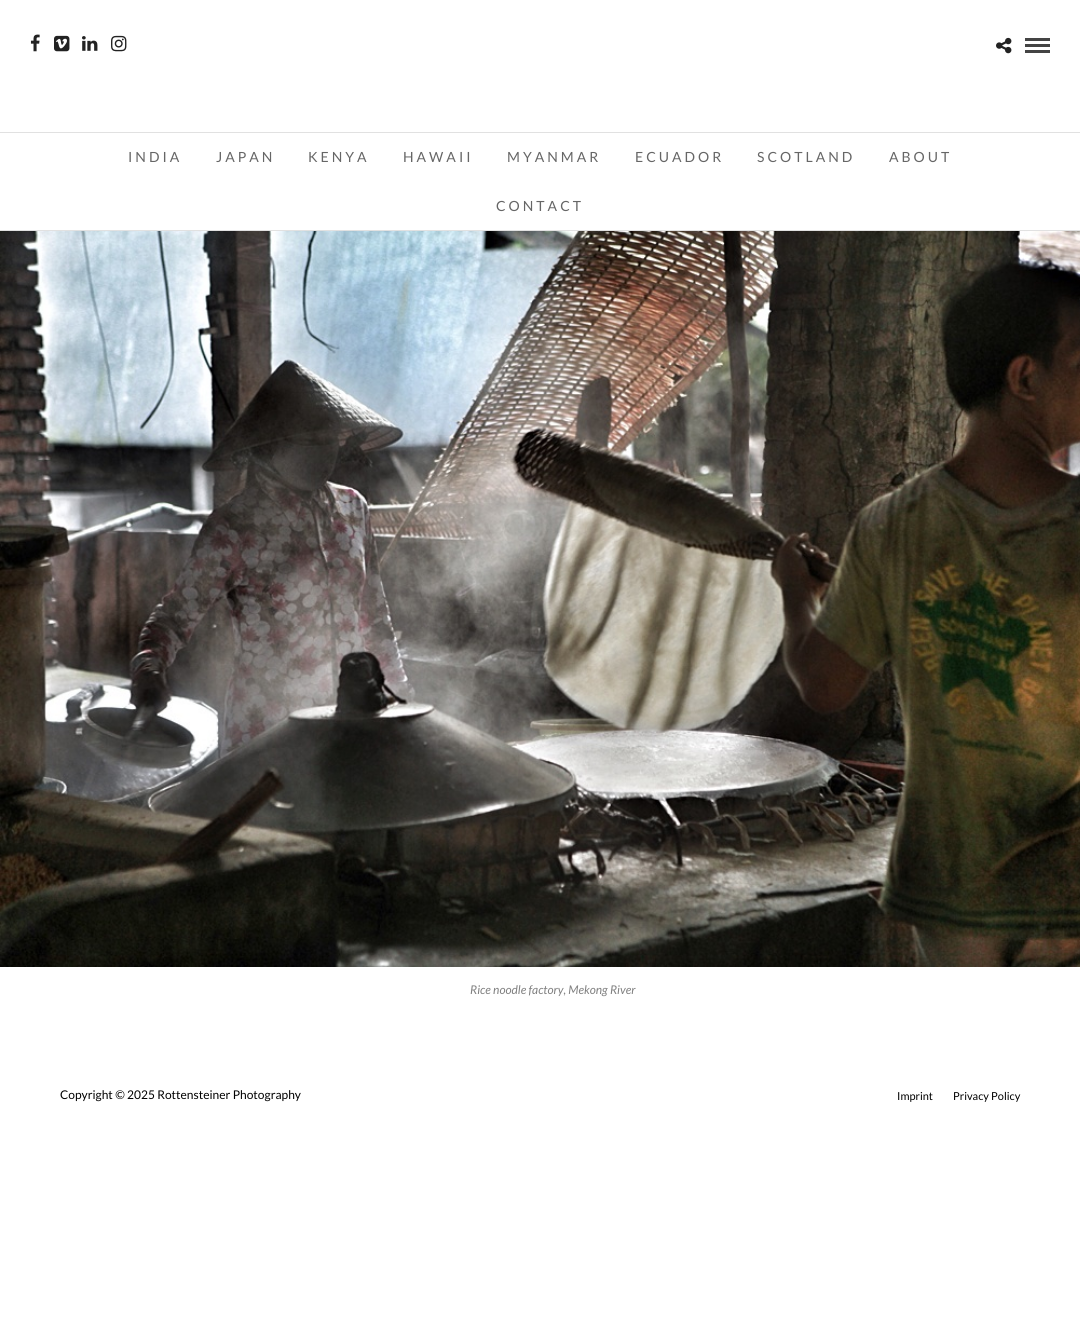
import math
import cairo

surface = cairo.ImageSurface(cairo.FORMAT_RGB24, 1080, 1341)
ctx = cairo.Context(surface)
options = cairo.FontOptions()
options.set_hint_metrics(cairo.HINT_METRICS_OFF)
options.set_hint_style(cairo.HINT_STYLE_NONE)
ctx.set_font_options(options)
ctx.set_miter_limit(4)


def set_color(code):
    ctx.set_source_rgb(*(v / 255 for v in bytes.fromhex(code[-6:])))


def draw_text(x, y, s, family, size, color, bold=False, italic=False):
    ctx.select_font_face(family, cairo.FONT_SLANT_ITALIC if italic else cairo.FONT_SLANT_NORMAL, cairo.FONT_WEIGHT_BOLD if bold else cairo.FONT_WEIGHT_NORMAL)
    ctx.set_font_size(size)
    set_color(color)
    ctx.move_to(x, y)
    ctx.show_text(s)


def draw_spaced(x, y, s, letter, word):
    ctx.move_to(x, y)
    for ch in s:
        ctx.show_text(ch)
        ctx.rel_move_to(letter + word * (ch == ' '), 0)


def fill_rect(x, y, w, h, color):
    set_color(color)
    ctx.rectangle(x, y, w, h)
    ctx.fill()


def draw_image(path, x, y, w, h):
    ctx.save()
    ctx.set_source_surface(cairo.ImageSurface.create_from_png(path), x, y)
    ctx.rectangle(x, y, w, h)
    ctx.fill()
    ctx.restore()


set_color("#ffffff")
ctx.paint()
fill_rect(0, 230, 1080, 1, "#e1e1e1")
fill_rect(0, 132, 1080, 1, "#e1e1e1")
draw_image("assets/img1.png", 30, 34, 10, 18)
draw_image("assets/img2.png", 54, 35, 16, 17)
draw_image("assets/img3.png", 82, 36, 16, 15)
draw_image("assets/img4.png", 111, 35, 16, 17)
draw_image("assets/img5.png", 996, 37, 16, 17)
fill_rect(1025, 38, 25, 3, "#444444")
fill_rect(1025, 44, 25, 3, "#444444")
fill_rect(1025, 50, 25, 3, "#444444")
ctx.select_font_face("Lato")
ctx.set_font_size(14)
set_color("#666666")
draw_spaced(128, 162, "INDIA", 3, 0)
draw_spaced(216, 162, "JAPAN", 3, 0)
draw_spaced(308, 162, "KENYA", 3, 0)
draw_spaced(403, 162, "HAWAII", 3, 0)
draw_spaced(507, 162, "MYANMAR", 3, 0)
draw_spaced(635, 162, "ECUADOR", 3, 0)
draw_spaced(757, 162, "SCOTLAND", 3, 0)
draw_spaced(889, 162, "ABOUT", 3, 0)
draw_spaced(496, 211, "CONTACT", 3, 0)
draw_image("assets/img6.png", 0, 231, 1080, 736)
draw_text(470, 994, "Rice noodle factory, Mekong River", "Lato", 12, "#808080", italic=True)
draw_text(60, 1099, "Copyright © 2025 Rottensteiner Photography", "Lato", 12, "#000000")
draw_text(897, 1100, "Imprint", "Lato", 11, "#000000")
draw_text(953, 1100, "Privacy Policy", "Lato", 11, "#000000")
surface.write_to_png("output.png")
